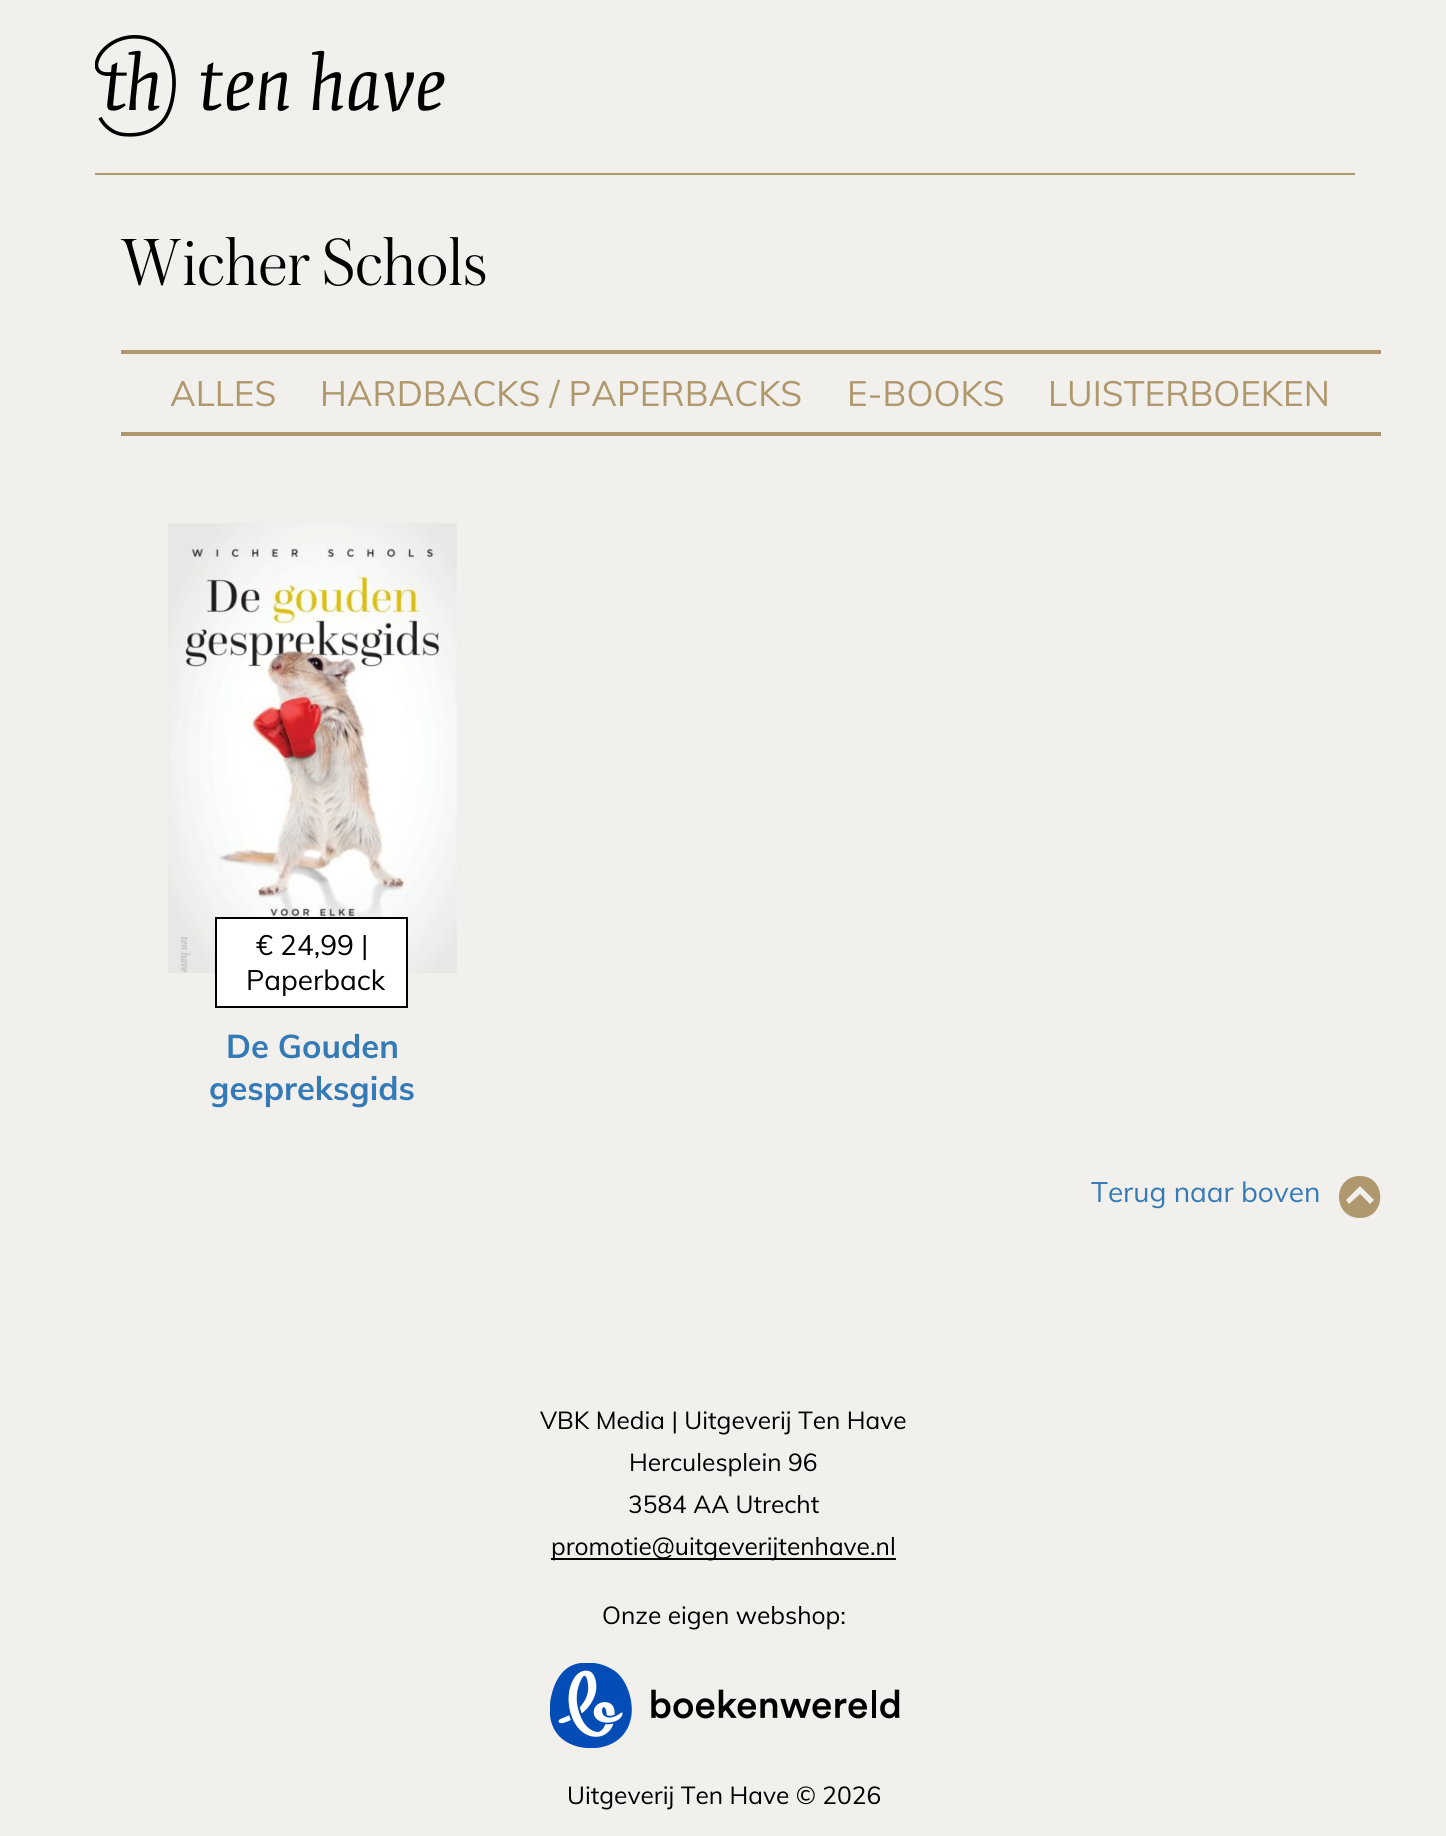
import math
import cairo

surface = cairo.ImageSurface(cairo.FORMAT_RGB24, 1446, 1836)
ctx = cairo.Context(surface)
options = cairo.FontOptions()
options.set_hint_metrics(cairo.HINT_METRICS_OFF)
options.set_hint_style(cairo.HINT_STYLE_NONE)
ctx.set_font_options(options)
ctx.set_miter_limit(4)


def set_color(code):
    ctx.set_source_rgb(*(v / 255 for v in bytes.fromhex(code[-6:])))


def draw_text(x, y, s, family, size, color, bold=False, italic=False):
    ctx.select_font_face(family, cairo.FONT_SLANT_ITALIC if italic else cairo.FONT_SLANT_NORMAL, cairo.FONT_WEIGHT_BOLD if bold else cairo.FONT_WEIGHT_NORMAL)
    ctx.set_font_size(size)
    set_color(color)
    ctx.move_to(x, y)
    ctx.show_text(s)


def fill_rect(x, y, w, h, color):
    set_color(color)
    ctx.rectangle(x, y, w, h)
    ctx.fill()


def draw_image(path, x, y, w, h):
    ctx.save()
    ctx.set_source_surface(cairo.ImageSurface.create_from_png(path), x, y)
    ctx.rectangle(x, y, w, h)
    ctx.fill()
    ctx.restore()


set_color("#f2f0ec")
ctx.paint()
draw_image("assets/img1.png", 95, 35, 350, 102)
fill_rect(95, 172, 1260, 1, "#eeeeee")
fill_rect(95, 173, 1260, 2, "#af986d")
draw_text(120, 285, "Wicher Schols", "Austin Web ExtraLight", 70, "#000000")
fill_rect(121, 350, 1260, 4, "#af986d")
fill_rect(121, 432, 1260, 4, "#af986d")
draw_text(170, 406, "ALLES", "Muli", 35, "#af986d")
draw_text(320, 406, "HARDBACKS / PAPERBACKS", "Muli", 35, "#af986d")
draw_text(847, 406, "E-BOOKS", "Muli", 35, "#af986d")
draw_text(1048, 406, "LUISTERBOEKEN", "Muli", 35, "#af986d")
draw_image("assets/img2.png", 168, 523, 289, 450)
set_color("#ffffff")
ctx.rectangle(216, 918, 191, 89)
ctx.fill_preserve()
set_color("#000000")
ctx.stroke()
draw_text(256, 955, "€ 24,99 |", "Muli", 28, "#000000")
draw_text(246, 990, "Paperback", "Muli", 28, "#000000")
draw_text(226, 1058, "De Gouden", "Muli", 32.75, "#337ab7", bold=True)
draw_text(209, 1100, "gespreksgids", "Muli", 32.75, "#337ab7", bold=True)
draw_text(1091, 1202, "Terug naar boven", "Muli", 28, "#337ab7")
set_color("#af986d")
ctx.new_path()
ctx.move_to(1360, 1176)
ctx.curve_to(1332, 1176, 1332, 1218, 1360, 1218)
ctx.curve_to(1387, 1218, 1387, 1176, 1360, 1176)
ctx.close_path()
ctx.move_to(1370, 1204)
ctx.line_to(1360, 1194)
ctx.line_to(1349, 1204)
ctx.line_to(1346, 1200)
ctx.line_to(1360, 1186)
ctx.line_to(1374, 1200)
ctx.close_path()
ctx.fill()
draw_text(540, 1429, "VBK Media | Uitgeverij Ten Have", "Muli", 24.5, "#000000")
draw_text(629, 1471, "Herculesplein 96", "Muli", 24.5, "#000000")
draw_text(628, 1513, "3584 AA Utrecht", "Muli", 24.5, "#000000")
fill_rect(551, 1558, 345, 2, "#000000")
draw_text(551, 1555, "promotie@uitgeverijtenhave.nl", "Muli", 24.5, "#000000")
draw_text(602, 1624, "Onze eigen webshop:", "Muli", 24.5, "#000000")
draw_image("assets/img3.png", 550, 1663, 350, 85)
draw_text(567, 1804, "Uitgeverij Ten Have © 2026", "Muli", 24.5, "#000000")
surface.write_to_png("output.png")
